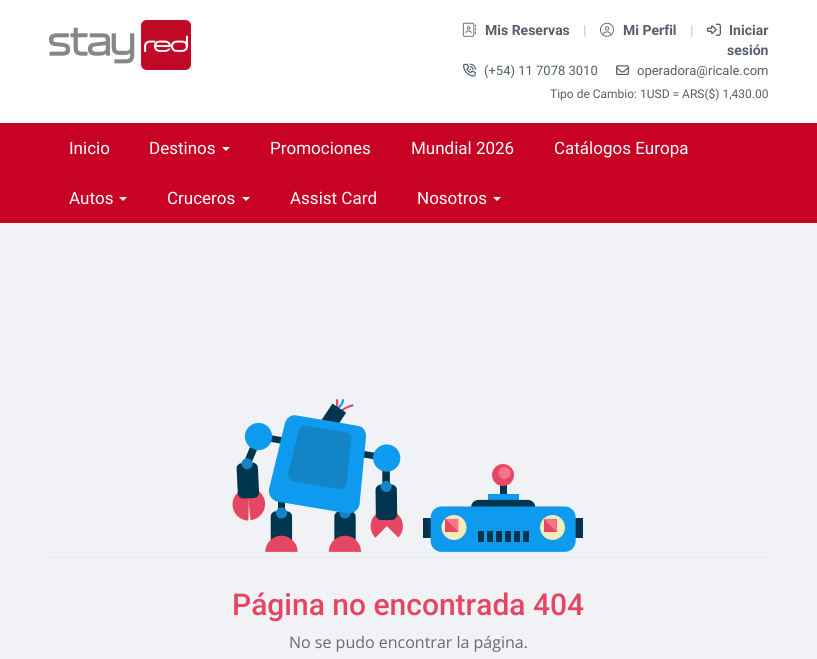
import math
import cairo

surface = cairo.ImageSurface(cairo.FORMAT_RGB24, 817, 659)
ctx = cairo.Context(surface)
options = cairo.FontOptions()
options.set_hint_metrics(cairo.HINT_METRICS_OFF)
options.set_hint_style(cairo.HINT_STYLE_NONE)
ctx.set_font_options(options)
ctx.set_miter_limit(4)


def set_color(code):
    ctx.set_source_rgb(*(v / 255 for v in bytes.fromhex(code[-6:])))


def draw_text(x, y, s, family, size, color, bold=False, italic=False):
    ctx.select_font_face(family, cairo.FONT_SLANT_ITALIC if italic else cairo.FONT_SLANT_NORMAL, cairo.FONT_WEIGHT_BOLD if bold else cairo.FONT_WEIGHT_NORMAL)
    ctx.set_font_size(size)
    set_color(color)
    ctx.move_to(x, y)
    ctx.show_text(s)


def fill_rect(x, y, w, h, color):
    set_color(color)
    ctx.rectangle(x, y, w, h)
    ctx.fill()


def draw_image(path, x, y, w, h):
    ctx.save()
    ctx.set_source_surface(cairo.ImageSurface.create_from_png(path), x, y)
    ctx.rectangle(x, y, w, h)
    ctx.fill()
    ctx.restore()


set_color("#f1f2f6")
ctx.paint()
fill_rect(0, 0, 817, 123, "#ffffff")
draw_image("assets/img1.png", 49, 20, 142, 50)
draw_image("assets/img2.png", 462, 22, 14, 15)
draw_text(485, 35, "Mis Reservas", "Roboto", 14, "#555e69", bold=True)
draw_text(583, 35, "|", "Roboto", 14, "#cccccc", bold=True)
draw_image("assets/img3.png", 600, 22, 14, 15)
draw_text(623, 35, "Mi Perfil", "Roboto", 14, "#555e69", bold=True)
draw_text(690, 35, "|", "Roboto", 14, "#cccccc", bold=True)
draw_image("assets/img4.png", 707, 23, 14, 13)
draw_text(729, 35, "Iniciar", "Roboto", 14, "#555e69", bold=True)
draw_text(727, 55, "sesión", "Roboto", 14, "#555e69", bold=True)
draw_image("assets/img5.png", 463, 63, 13, 14)
draw_text(484, 75, "(+54) 11 7078 3010", "Roboto", 13, "#555e69")
draw_image("assets/img6.png", 616, 65, 13, 10)
draw_text(637, 75, "operadora@ricale.com", "Roboto", 13, "#555e69")
draw_text(550, 98, "Tipo de Cambio: 1USD = ARS($) 1,430.00", "Roboto", 12, "#555e69")
fill_rect(0, 123, 817, 100, "#c80225")
draw_text(69, 154, "Inicio", "Roboto", 17, "#ffffff")
draw_text(149, 154, "Destinos", "Roboto", 17, "#ffffff")
ctx.new_path()
ctx.move_to(222, 147)
ctx.line_to(230, 147)
ctx.line_to(226, 151)
ctx.close_path()
ctx.fill()
draw_text(270, 154, "Promociones", "Roboto", 17, "#ffffff")
draw_text(411, 154, "Mundial 2026", "Roboto", 17, "#ffffff")
draw_text(554, 154, "Catálogos Europa", "Roboto", 17, "#ffffff")
draw_text(69, 204, "Autos", "Roboto", 17, "#ffffff")
ctx.new_path()
ctx.move_to(119, 197)
ctx.line_to(127, 197)
ctx.line_to(123, 201)
ctx.close_path()
ctx.fill()
draw_text(167, 204, "Cruceros", "Roboto", 17, "#ffffff")
ctx.new_path()
ctx.move_to(242, 197)
ctx.line_to(250, 197)
ctx.line_to(246, 201)
ctx.close_path()
ctx.fill()
draw_text(290, 204, "Assist Card", "Roboto", 17, "#ffffff")
draw_text(417, 204, "Nosotros", "Roboto", 17, "#ffffff")
ctx.new_path()
ctx.move_to(493, 197)
ctx.line_to(501, 197)
ctx.line_to(497, 201)
ctx.close_path()
ctx.fill()
draw_image("assets/img7.png", 232, 399, 351, 153)
fill_rect(49, 557, 720, 1, "#e7eaec")
draw_text(232, 615, "Página no encontrada 404", "Roboto Medium", 30, "#e54560")
draw_text(289, 648, "No se pudo encontrar la página.", "Open Sans", 16, "#676a6c")
surface.write_to_png("output.png")
